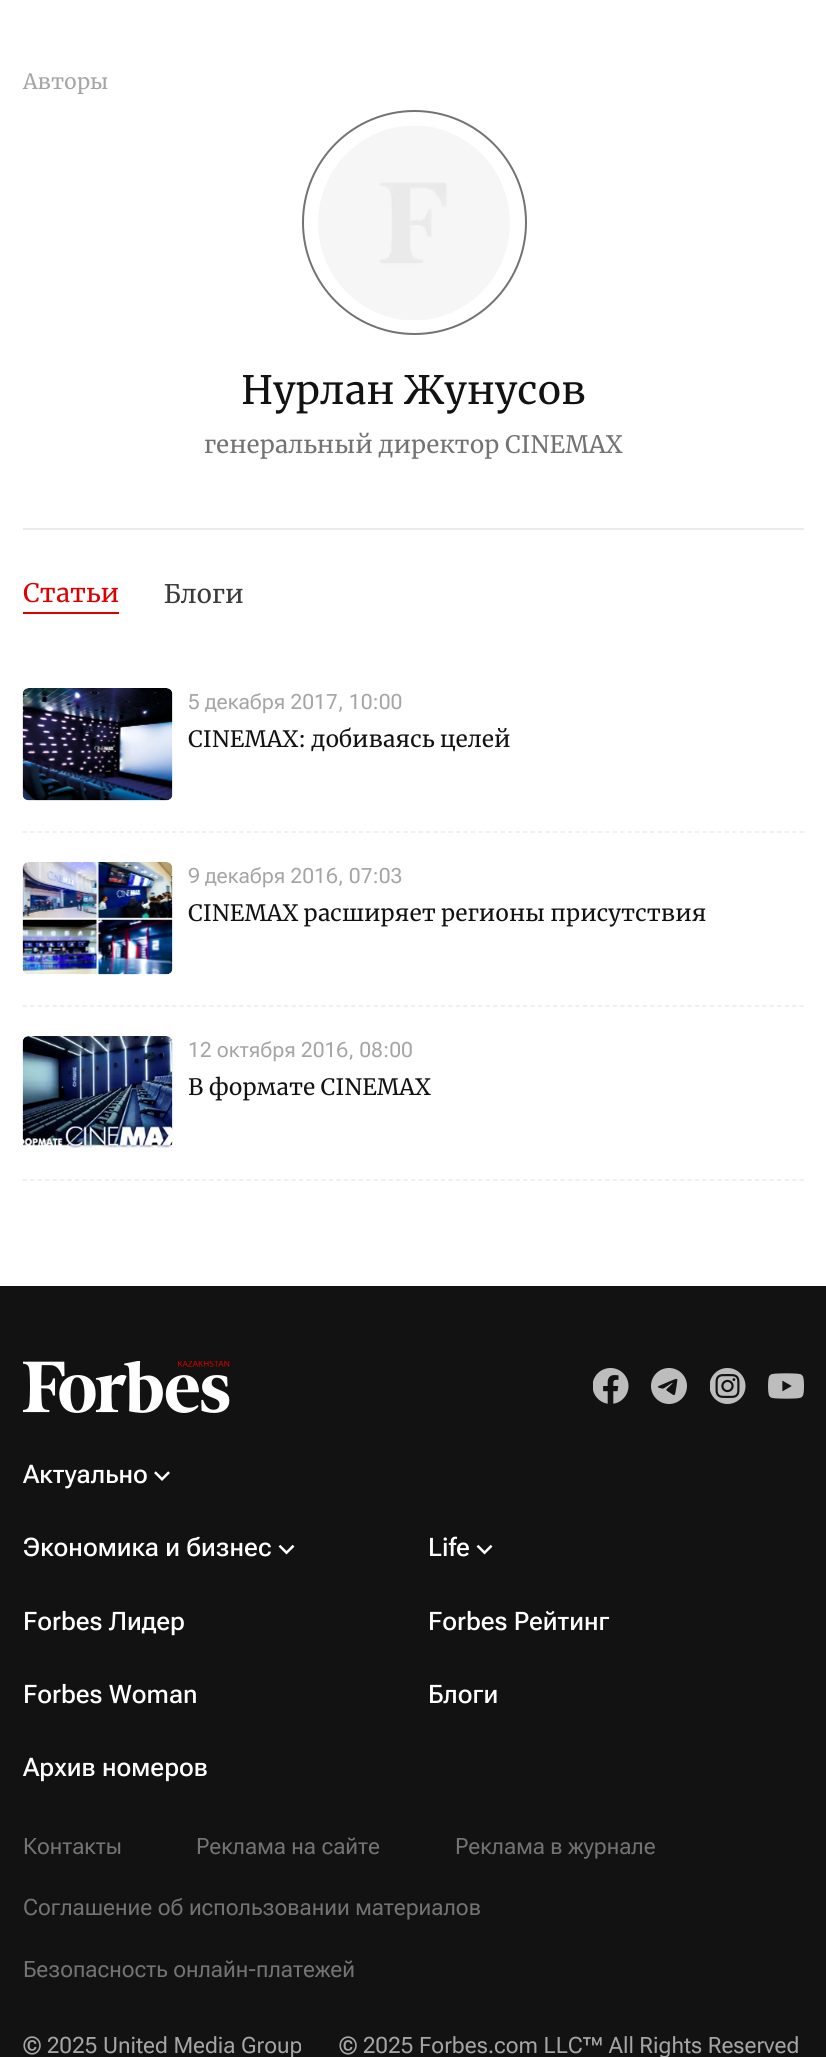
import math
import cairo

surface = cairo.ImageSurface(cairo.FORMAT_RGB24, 826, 2057)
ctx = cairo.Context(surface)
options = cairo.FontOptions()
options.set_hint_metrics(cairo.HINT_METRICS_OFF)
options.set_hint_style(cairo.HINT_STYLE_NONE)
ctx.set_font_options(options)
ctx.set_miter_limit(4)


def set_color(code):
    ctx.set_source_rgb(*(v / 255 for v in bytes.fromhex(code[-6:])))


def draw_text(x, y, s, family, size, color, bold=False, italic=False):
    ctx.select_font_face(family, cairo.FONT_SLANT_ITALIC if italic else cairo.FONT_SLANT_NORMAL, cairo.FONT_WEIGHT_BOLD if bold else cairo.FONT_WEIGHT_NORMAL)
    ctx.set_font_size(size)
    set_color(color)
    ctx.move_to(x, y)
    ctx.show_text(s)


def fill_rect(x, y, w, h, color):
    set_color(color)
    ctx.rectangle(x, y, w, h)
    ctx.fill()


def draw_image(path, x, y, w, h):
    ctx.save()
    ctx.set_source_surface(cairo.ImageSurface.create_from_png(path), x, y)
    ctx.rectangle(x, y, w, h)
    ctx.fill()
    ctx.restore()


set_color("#ffffff")
ctx.paint()
draw_text(23, 89, "Авторы", "Merriweather", 21, "#a5a5a5")
fill_rect(23, 528, 781, 2, "#ebebeb")
ctx.new_path()
ctx.arc(414.5, 222.5, 111.5, 0, 2 * math.pi)
set_color("#737373")
ctx.stroke()
draw_image("assets/img1.png", 318, 126, 192, 194)
draw_text(241, 404, "Нурлан Жунусов", "Merriweather", 39, "#121212")
draw_text(204, 453, "генеральный директор CINEMAX", "Merriweather", 24, "#737373")
fill_rect(23, 612, 96, 2, "#dc0000")
draw_text(23, 602, "Статьи", "Merriweather", 25.5, "#dc0000")
draw_text(164, 603, "Блоги", "Merriweather", 25.5, "#3b3b3b")
ctx.new_path()
ctx.move_to(22.5, 832)
ctx.line_to(804, 832)
set_color("#ebebeb")
ctx.set_line_width(1.5)
ctx.set_dash([4.5, 2.97])
ctx.stroke()
draw_image("assets/img2.png", 22, 688, 151, 113)
draw_text(188, 709, "5 декабря 2017, 10:00", "Roboto Flex", 21, "#a5a5a5")
draw_text(188, 747, "CINEMAX: добиваясь целей", "Merriweather", 22.5, "#121212")
ctx.new_path()
ctx.move_to(22.5, 1006)
ctx.line_to(804, 1006)
set_color("#ebebeb")
ctx.stroke()
draw_image("assets/img3.png", 22, 862, 151, 113)
draw_text(188, 883, "9 декабря 2016, 07:03", "Roboto Flex", 21, "#a5a5a5")
draw_text(188, 921, "CINEMAX расширяет регионы присутствия", "Merriweather", 22.5, "#121212")
ctx.new_path()
ctx.move_to(22.5, 1180)
ctx.line_to(804, 1180)
set_color("#ebebeb")
ctx.stroke()
draw_image("assets/img4.png", 22, 1036, 151, 112)
draw_text(188, 1057, "12 октября 2016, 08:00", "Roboto Flex", 21, "#a5a5a5")
draw_text(188, 1095, "В формате CINEMAX", "Merriweather", 22.5, "#121212")
fill_rect(0, 1286, 826, 771, "#121212")
draw_image("assets/img5.png", 23, 1361, 207, 52)
draw_image("assets/img6.png", 593, 1368, 36, 36)
draw_image("assets/img7.png", 651, 1368, 36, 36)
draw_image("assets/img8.png", 710, 1368, 36, 36)
draw_image("assets/img9.png", 768, 1373, 36, 26)
draw_text(23, 1483, "Актуально", "Roboto Flex Medium", 25.5, "#ffffff")
draw_image("assets/img10.png", 154, 1471, 16, 10)
draw_text(23, 1556, "Экономика и бизнес", "Roboto Flex Medium", 25.5, "#ffffff")
draw_image("assets/img11.png", 278, 1544, 17, 11)
draw_text(428, 1556, "Life", "Roboto Flex Medium", 25.5, "#ffffff")
draw_image("assets/img11.png", 476, 1544, 17, 11)
draw_text(23, 1630, "Forbes Лидер", "Roboto Flex Medium", 25.5, "#ffffff")
draw_text(428, 1630, "Forbes Рейтинг", "Roboto Flex Medium", 25.5, "#ffffff")
draw_text(23, 1703, "Forbes Woman", "Roboto Flex Medium", 25.5, "#ffffff")
draw_text(428, 1703, "Блоги", "Roboto Flex Medium", 25.5, "#ffffff")
draw_text(23, 1776, "Архив номеров", "Roboto Flex Medium", 25.5, "#ffffff")
draw_text(23, 1854, "Контакты", "Roboto Flex", 22.5, "#737373")
draw_text(196, 1854, "Реклама на сайте", "Roboto Flex", 22.5, "#737373")
draw_text(455, 1854, "Реклама в журнале", "Roboto Flex", 22.5, "#737373")
draw_text(23, 1915, "Соглашение об использовании материалов", "Roboto Flex", 22.5, "#737373")
draw_text(23, 1977, "Безопасность онлайн-платежей", "Roboto Flex", 22.5, "#737373")
draw_text(23, 2053, "© 2025 United Media Group", "Roboto Flex", 22.5, "#a5a5a5")
draw_text(339, 2053, "© 2025 Forbes.com LLC™ All Rights Reserved", "Roboto Flex", 22.5, "#a5a5a5")
surface.write_to_png("output.png")
